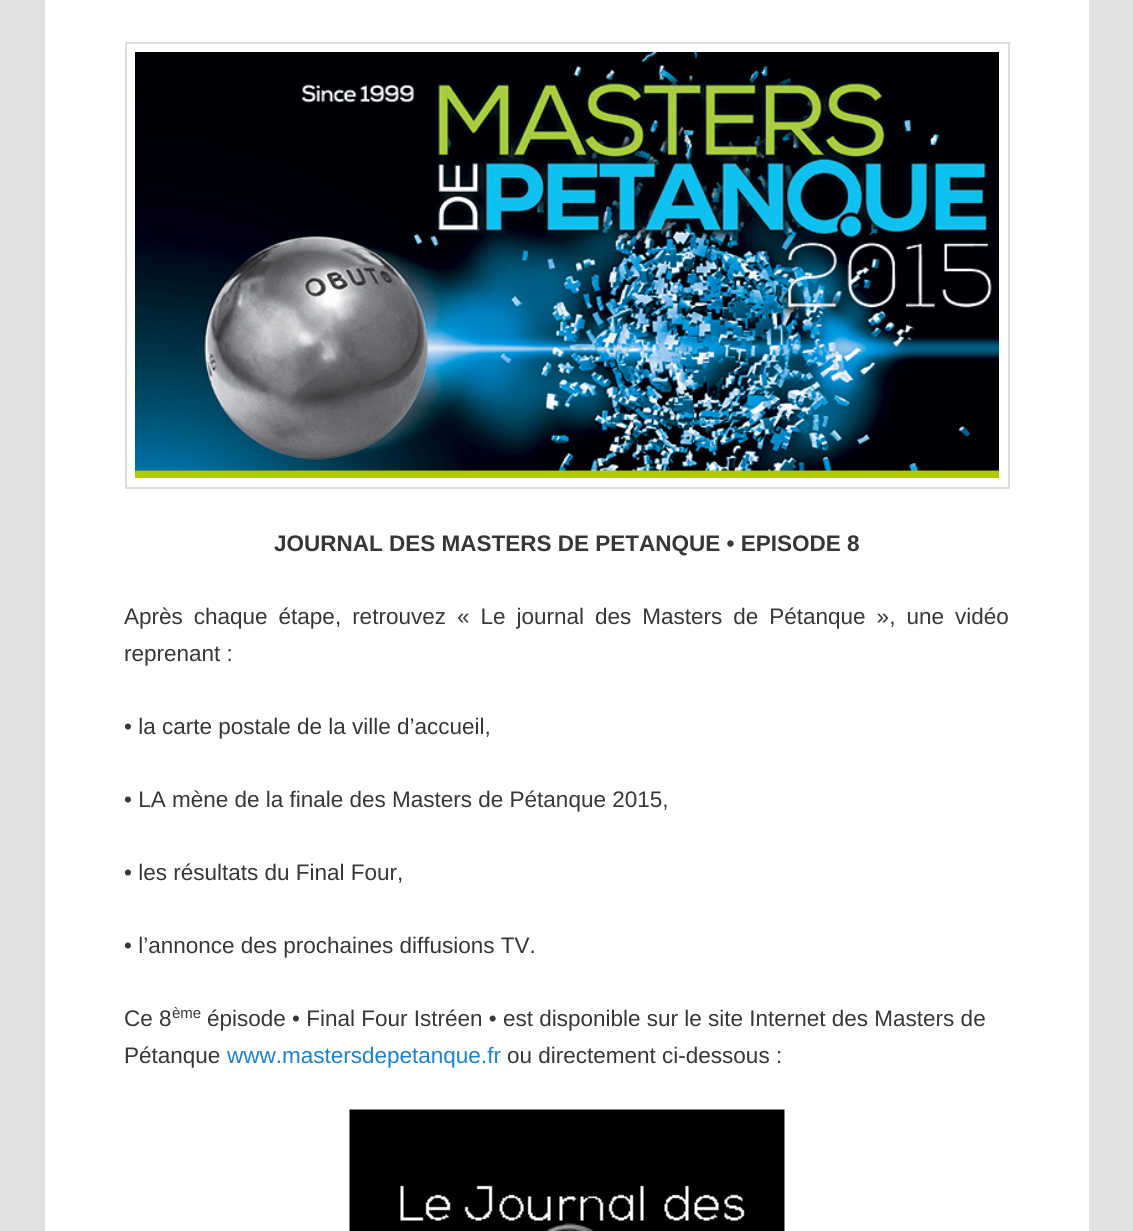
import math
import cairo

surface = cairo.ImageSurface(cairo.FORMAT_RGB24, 1133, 1231)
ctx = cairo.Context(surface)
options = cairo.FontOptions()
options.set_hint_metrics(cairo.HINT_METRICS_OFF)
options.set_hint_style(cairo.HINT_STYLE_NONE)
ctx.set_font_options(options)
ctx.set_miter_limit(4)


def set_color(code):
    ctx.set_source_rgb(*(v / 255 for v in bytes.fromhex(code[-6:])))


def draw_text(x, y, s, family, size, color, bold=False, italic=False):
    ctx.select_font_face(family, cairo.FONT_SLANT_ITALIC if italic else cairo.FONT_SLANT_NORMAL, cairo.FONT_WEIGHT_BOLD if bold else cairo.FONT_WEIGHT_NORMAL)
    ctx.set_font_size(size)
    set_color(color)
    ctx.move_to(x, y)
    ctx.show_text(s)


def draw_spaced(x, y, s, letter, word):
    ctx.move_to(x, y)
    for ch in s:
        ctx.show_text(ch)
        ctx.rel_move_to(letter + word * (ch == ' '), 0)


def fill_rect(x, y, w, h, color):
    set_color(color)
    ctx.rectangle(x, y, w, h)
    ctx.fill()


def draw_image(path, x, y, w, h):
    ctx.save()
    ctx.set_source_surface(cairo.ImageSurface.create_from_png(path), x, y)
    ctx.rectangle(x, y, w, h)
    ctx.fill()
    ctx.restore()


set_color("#e2e2e2")
ctx.paint()
fill_rect(45, 0, 1044, 1231, "#ffffff")
ctx.rectangle(126, 43, 883, 445)
set_color("#dddddd")
ctx.stroke()
draw_image("assets/img1.png", 135, 52, 864, 426)
draw_text(274, 551, "JOURNAL DES MASTERS DE PETANQUE • EPISODE 8", "Liberation Sans", 22.5, "#373737", bold=True)
ctx.select_font_face("Liberation Sans")
draw_spaced(124, 624, "Après chaque étape, retrouvez « Le journal des Masters de Pétanque », une vidéo", 0, 4.75)
draw_text(124, 661, "reprenant :", "Liberation Sans", 22.5, "#373737")
draw_text(124, 734, "• la carte postale de la ville d’accueil,", "Liberation Sans", 22.5, "#373737")
draw_text(124, 807, "• LA mène de la finale des Masters de Pétanque 2015,", "Liberation Sans", 22.5, "#373737")
draw_text(124, 880, "• les résultats du Final Four,", "Liberation Sans", 22.5, "#373737")
draw_text(124, 953, "• l’annonce des prochaines diffusions TV.", "Liberation Sans", 22.5, "#373737")
draw_text(124, 1026, "Ce 8", "Liberation Sans", 22.5, "#373737")
draw_text(172, 1018, "ème", "Liberation Sans", 15, "#373737")
draw_text(207, 1026, "épisode • Final Four Istréen • est disponible sur le site Internet des Masters de", "Liberation Sans", 22.5, "#373737")
draw_text(124, 1063, "Pétanque", "Liberation Sans", 22.5, "#373737")
draw_text(227, 1063, "www.mastersdepetanque.fr", "Liberation Sans", 22.5, "#1982d1")
draw_text(507, 1063, "ou directement ci-dessous :", "Liberation Sans", 22.5, "#373737")
draw_image("assets/img2.png", 349, 1109, 436, 122)
surface.write_to_png("output.png")
